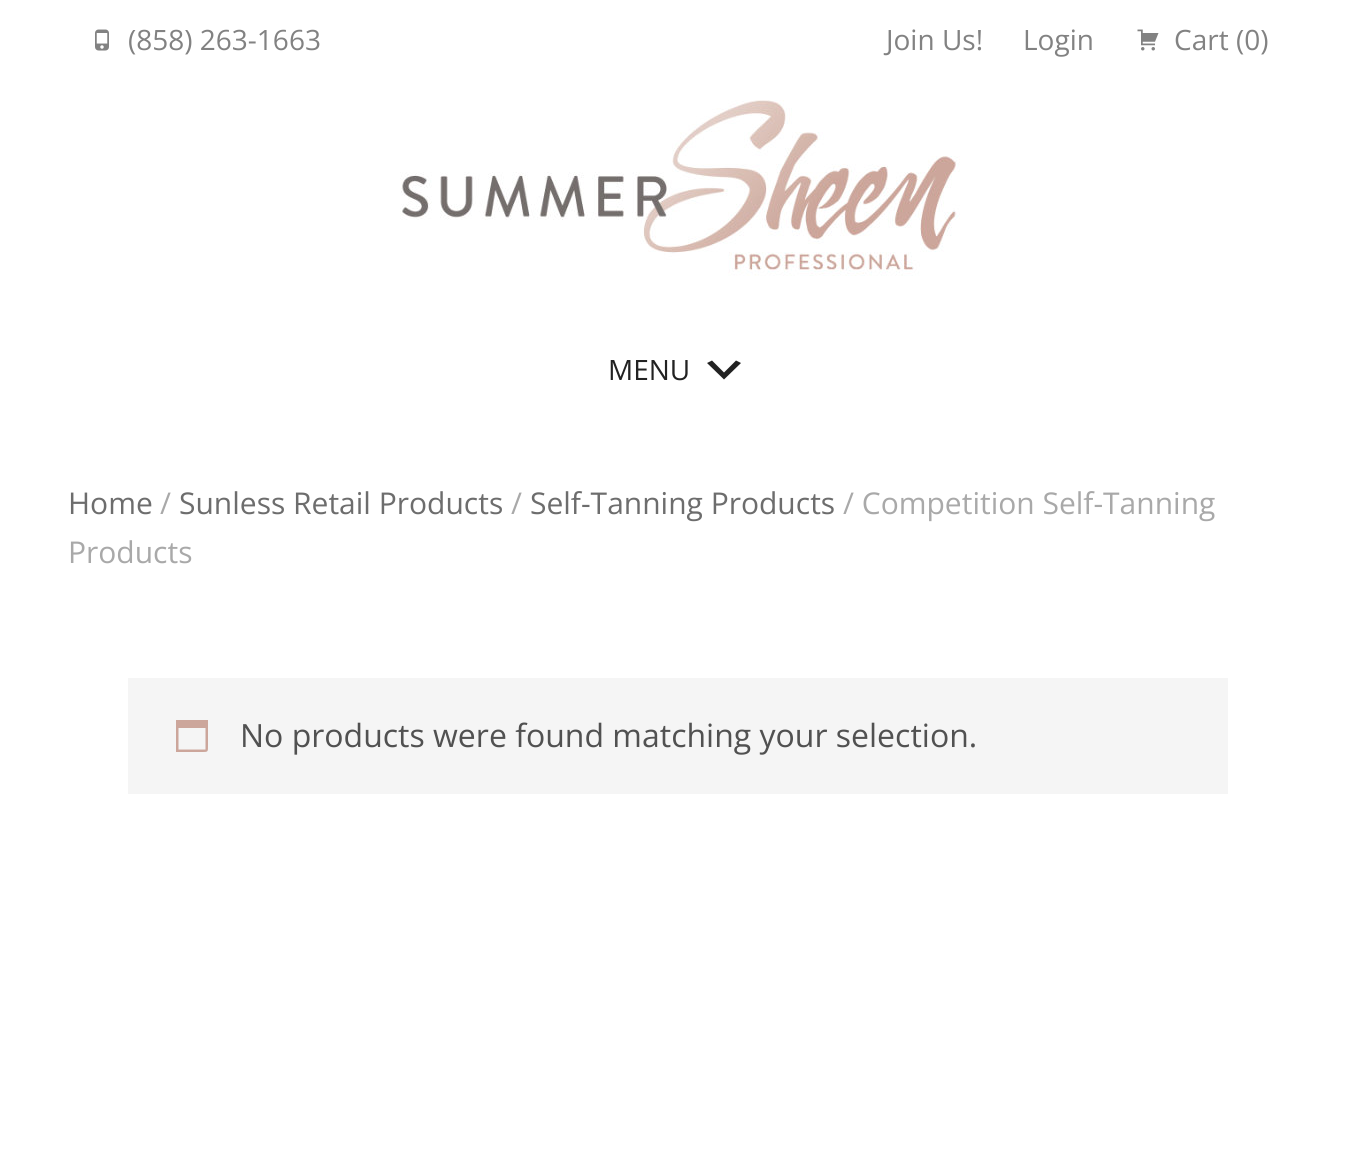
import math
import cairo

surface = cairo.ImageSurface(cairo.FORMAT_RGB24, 1355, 1153)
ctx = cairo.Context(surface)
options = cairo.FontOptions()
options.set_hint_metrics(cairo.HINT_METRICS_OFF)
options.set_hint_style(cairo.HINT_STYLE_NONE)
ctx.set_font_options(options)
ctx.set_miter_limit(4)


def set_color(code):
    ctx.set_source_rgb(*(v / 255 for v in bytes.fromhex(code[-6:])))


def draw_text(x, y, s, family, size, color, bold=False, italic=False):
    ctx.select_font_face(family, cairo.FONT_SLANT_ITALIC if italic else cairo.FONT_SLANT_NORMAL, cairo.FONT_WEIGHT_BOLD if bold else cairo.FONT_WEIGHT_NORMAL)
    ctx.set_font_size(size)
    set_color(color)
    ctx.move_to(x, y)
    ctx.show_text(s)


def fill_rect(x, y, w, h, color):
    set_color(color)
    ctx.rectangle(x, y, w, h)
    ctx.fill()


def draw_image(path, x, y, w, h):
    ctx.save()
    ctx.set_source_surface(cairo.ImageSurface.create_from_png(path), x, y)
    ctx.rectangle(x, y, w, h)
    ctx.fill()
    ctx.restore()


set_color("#ffffff")
ctx.paint()
draw_image("assets/img1.png", 95, 29, 14, 22)
draw_text(128, 50, "(858) 263-1663", "Open Sans", 28, "#828282")
draw_text(886, 50, "Join Us!", "Open Sans", 28, "#828282")
draw_text(1023, 50, "Login", "Open Sans", 28, "#828282")
draw_image("assets/img2.png", 1137, 29, 22, 22)
draw_text(1174, 50, "Cart (0)", "Open Sans", 28, "#828282")
draw_image("assets/img3.png", 400, 100, 560, 176)
draw_text(608, 380, "MENU", "Open Sans", 28, "#222222")
ctx.new_path()
ctx.move_to(712, 360.5)
ctx.line_to(724, 372.5)
ctx.line_to(736, 360.5)
ctx.line_to(741, 363)
ctx.line_to(724, 379.5)
ctx.line_to(707, 363)
ctx.close_path()
ctx.fill()
draw_text(68, 514, "Home", "Open Sans", 30, "#6d6d6d")
draw_text(160, 514, "/", "Open Sans", 30, "#a9a9a9")
draw_text(179, 514, "Sunless Retail Products", "Open Sans", 30, "#6d6d6d")
draw_text(511, 514, "/", "Open Sans", 30, "#a9a9a9")
draw_text(530, 514, "Self-Tanning Products", "Open Sans", 30, "#6d6d6d")
draw_text(843, 514, "/ Competition Self-Tanning", "Open Sans", 30, "#a9a9a9")
draw_text(68, 563, "Products", "Open Sans", 30, "#a9a9a9")
fill_rect(128, 678, 1100, 116, "#f5f5f5")
set_color("#cca69b")
ctx.new_path()
ctx.move_to(205.5, 728)
ctx.line_to(178.5, 728)
ctx.line_to(178.5, 749.5)
ctx.line_to(205.5, 749.5)
ctx.close_path()
ctx.move_to(208, 720)
ctx.line_to(208, 744.5)
ctx.curve_to(208, 752.5, 208.5, 752, 200.5, 752)
ctx.line_to(176, 752)
ctx.line_to(176, 720)
ctx.close_path()
ctx.fill()
draw_text(240, 747, "No products were found matching your selection.", "Open Sans", 32, "#515151")
surface.write_to_png("output.png")
